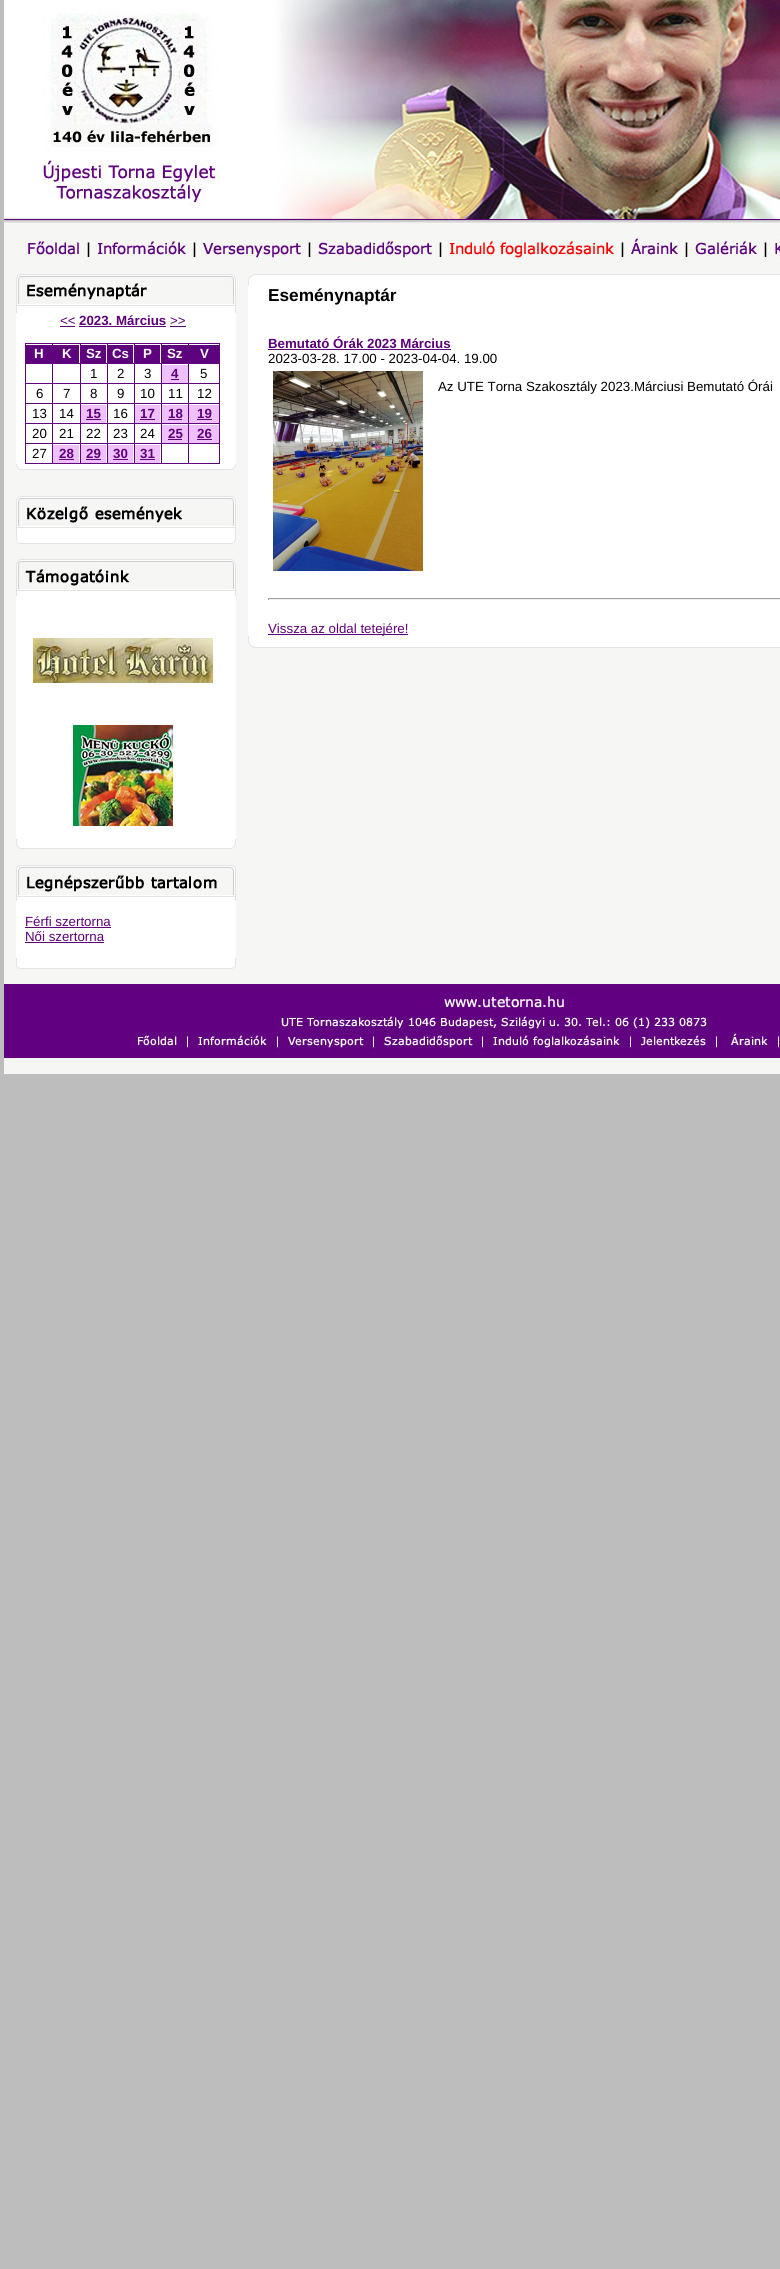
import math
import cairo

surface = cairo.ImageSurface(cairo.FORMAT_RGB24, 780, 2269)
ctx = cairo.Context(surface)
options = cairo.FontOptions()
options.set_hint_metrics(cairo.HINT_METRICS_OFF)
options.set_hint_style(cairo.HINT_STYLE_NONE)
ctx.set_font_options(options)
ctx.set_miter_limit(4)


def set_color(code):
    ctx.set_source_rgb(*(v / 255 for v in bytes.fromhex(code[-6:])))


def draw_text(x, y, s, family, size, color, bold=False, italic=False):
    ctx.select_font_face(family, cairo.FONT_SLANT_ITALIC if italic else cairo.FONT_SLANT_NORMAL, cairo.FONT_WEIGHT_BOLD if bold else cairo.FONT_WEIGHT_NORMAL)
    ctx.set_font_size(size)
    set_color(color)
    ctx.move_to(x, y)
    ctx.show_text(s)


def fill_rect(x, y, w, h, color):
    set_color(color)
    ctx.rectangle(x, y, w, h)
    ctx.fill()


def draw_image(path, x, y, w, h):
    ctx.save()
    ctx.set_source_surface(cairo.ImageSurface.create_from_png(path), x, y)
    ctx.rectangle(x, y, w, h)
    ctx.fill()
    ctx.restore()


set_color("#bdbdbd")
ctx.paint()
fill_rect(4, 226, 776, 47, "#f6f6f4")
draw_image("assets/img1.png", 4, 0, 776, 218)
draw_image("assets/img2.png", 4, 218, 776, 8)
draw_image("assets/img3.png", 28, 236, 60, 24)
draw_image("assets/img4.png", 88, 236, 104, 24)
draw_image("assets/img5.png", 193, 236, 116, 24)
draw_image("assets/img6.png", 309, 236, 131, 24)
draw_image("assets/img7.png", 440, 236, 183, 24)
draw_image("assets/img8.png", 623, 236, 65, 24)
draw_image("assets/img9.png", 691, 236, 75, 24)
draw_image("assets/img10.png", 766, 236, 14, 24)
fill_rect(4, 273, 776, 801, "#f6f6f4")
draw_image("assets/img11.png", 13, 273, 223, 40)
fill_rect(16, 313, 220, 151, "#ffffff")
draw_text(60, 325, "<<", "Liberation Sans", 13.3, "#5d0079")
fill_rect(60, 326, 15, 1, "#5d0079")
draw_text(79, 325, "2023. Március", "Liberation Sans", 13.3, "#5d0079", bold=True)
fill_rect(79, 326, 87, 1, "#5d0079")
draw_text(170, 325, ">>", "Liberation Sans", 13.3, "#5d0079")
fill_rect(170, 326, 16, 1, "#5d0079")
fill_rect(25, 463, 195, 1, "#5e027e")
fill_rect(25, 343, 1, 121, "#5e027e")
fill_rect(26, 345, 26, 19, "#5e027e")
fill_rect(25, 343, 195, 1, "#5e027e")
fill_rect(52, 363, 110, 1, "#5e027e")
fill_rect(25, 383, 195, 1, "#5e027e")
fill_rect(25, 403, 195, 1, "#5e027e")
fill_rect(25, 423, 195, 1, "#5e027e")
fill_rect(25, 443, 195, 1, "#5e027e")
fill_rect(52, 443, 1, 21, "#5e027e")
fill_rect(52, 423, 1, 21, "#5e027e")
fill_rect(52, 403, 1, 21, "#5e027e")
fill_rect(52, 383, 1, 21, "#5e027e")
fill_rect(52, 363, 1, 21, "#5e027e")
fill_rect(52, 343, 1, 21, "#5e027e")
draw_text(34, 358, "H", "Liberation Sans", 13.3, "#ffffff", bold=True)
fill_rect(53, 345, 26, 18, "#5e027e")
fill_rect(80, 443, 1, 21, "#5e027e")
fill_rect(80, 423, 1, 21, "#5e027e")
fill_rect(80, 403, 1, 21, "#5e027e")
fill_rect(80, 383, 1, 21, "#5e027e")
fill_rect(80, 363, 1, 21, "#5e027e")
fill_rect(80, 343, 1, 21, "#5e027e")
draw_text(62, 358, "K", "Liberation Sans", 13.3, "#ffffff", bold=True)
fill_rect(81, 345, 25, 18, "#5e027e")
fill_rect(107, 443, 1, 21, "#5e027e")
fill_rect(107, 423, 1, 21, "#5e027e")
fill_rect(107, 403, 1, 21, "#5e027e")
fill_rect(107, 383, 1, 21, "#5e027e")
fill_rect(107, 363, 1, 21, "#5e027e")
fill_rect(107, 343, 1, 21, "#5e027e")
draw_text(86, 358, "Sz", "Liberation Sans", 13.3, "#ffffff", bold=True)
fill_rect(108, 345, 25, 18, "#5e027e")
fill_rect(134, 443, 1, 21, "#5e027e")
fill_rect(134, 423, 1, 21, "#5e027e")
fill_rect(134, 403, 1, 21, "#5e027e")
fill_rect(134, 383, 1, 21, "#5e027e")
fill_rect(134, 363, 1, 21, "#5e027e")
fill_rect(134, 343, 1, 21, "#5e027e")
draw_text(112, 358, "Cs", "Liberation Sans", 13.3, "#ffffff", bold=True)
fill_rect(135, 345, 25, 18, "#5e027e")
fill_rect(161, 443, 1, 21, "#5e027e")
fill_rect(161, 423, 1, 21, "#5e027e")
fill_rect(161, 403, 1, 21, "#5e027e")
fill_rect(161, 383, 1, 21, "#5e027e")
fill_rect(161, 363, 1, 21, "#5e027e")
fill_rect(161, 343, 1, 21, "#5e027e")
draw_text(143, 358, "P", "Liberation Sans", 13.3, "#ffffff", bold=True)
fill_rect(162, 345, 26, 19, "#5e027e")
fill_rect(188, 363, 32, 1, "#5e027e")
fill_rect(188, 443, 1, 21, "#5e027e")
fill_rect(188, 423, 1, 21, "#5e027e")
fill_rect(188, 403, 1, 21, "#5e027e")
fill_rect(188, 383, 1, 21, "#5e027e")
fill_rect(188, 363, 1, 21, "#5e027e")
fill_rect(188, 343, 1, 21, "#5e027e")
draw_text(167, 358, "Sz", "Liberation Sans", 13.3, "#ffffff", bold=True)
fill_rect(189, 345, 30, 18, "#5e027e")
fill_rect(219, 443, 1, 21, "#5e027e")
fill_rect(219, 423, 1, 21, "#5e027e")
fill_rect(219, 403, 1, 21, "#5e027e")
fill_rect(219, 383, 1, 21, "#5e027e")
fill_rect(219, 363, 1, 21, "#5e027e")
fill_rect(219, 343, 1, 21, "#5e027e")
draw_text(200, 358, "V", "Liberation Sans", 13.3, "#ffffff", bold=True)
draw_text(90, 378, "1", "Liberation Sans", 13.3, "#000000")
draw_text(117, 378, "2", "Liberation Sans", 13.3, "#000000")
draw_text(144, 378, "3", "Liberation Sans", 13.3, "#000000")
fill_rect(162, 365, 26, 18, "#efc0fe")
draw_text(171, 378, "4", "Liberation Sans", 13.3, "#5d0079", bold=True)
fill_rect(171, 379, 8, 1, "#5d0079")
draw_text(200, 378, "5", "Liberation Sans", 13.3, "#000000")
draw_text(36, 398, "6", "Liberation Sans", 13.3, "#000000")
draw_text(63, 398, "7", "Liberation Sans", 13.3, "#000000")
draw_text(90, 398, "8", "Liberation Sans", 13.3, "#000000")
draw_text(117, 398, "9", "Liberation Sans", 13.3, "#000000")
draw_text(140, 398, "10", "Liberation Sans", 13.3, "#000000")
draw_text(168, 398, "11", "Liberation Sans", 13.3, "#000000")
draw_text(197, 398, "12", "Liberation Sans", 13.3, "#000000")
draw_text(32, 418, "13", "Liberation Sans", 13.3, "#000000")
draw_text(59, 418, "14", "Liberation Sans", 13.3, "#000000")
fill_rect(81, 405, 25, 18, "#efc0fe")
draw_text(86, 418, "15", "Liberation Sans", 13.3, "#5d0079", bold=True)
fill_rect(86, 419, 15, 1, "#5d0079")
draw_text(113, 418, "16", "Liberation Sans", 13.3, "#000000")
fill_rect(135, 405, 25, 18, "#efc0fe")
draw_text(140, 418, "17", "Liberation Sans", 13.3, "#5d0079", bold=True)
fill_rect(140, 419, 15, 1, "#5d0079")
fill_rect(162, 405, 26, 18, "#efc0fe")
draw_text(168, 418, "18", "Liberation Sans", 13.3, "#5d0079", bold=True)
fill_rect(168, 419, 14, 1, "#5d0079")
fill_rect(189, 405, 30, 18, "#efc0fe")
draw_text(197, 418, "19", "Liberation Sans", 13.3, "#5d0079", bold=True)
fill_rect(197, 419, 15, 1, "#5d0079")
draw_text(32, 438, "20", "Liberation Sans", 13.3, "#000000")
draw_text(59, 438, "21", "Liberation Sans", 13.3, "#000000")
draw_text(86, 438, "22", "Liberation Sans", 13.3, "#000000")
draw_text(113, 438, "23", "Liberation Sans", 13.3, "#000000")
draw_text(140, 438, "24", "Liberation Sans", 13.3, "#000000")
fill_rect(162, 425, 26, 18, "#efc0fe")
draw_text(168, 438, "25", "Liberation Sans", 13.3, "#5d0079", bold=True)
fill_rect(168, 439, 14, 1, "#5d0079")
fill_rect(189, 425, 30, 18, "#efc0fe")
draw_text(197, 438, "26", "Liberation Sans", 13.3, "#5d0079", bold=True)
fill_rect(197, 439, 15, 1, "#5d0079")
draw_text(32, 458, "27", "Liberation Sans", 13.3, "#000000")
fill_rect(53, 445, 26, 18, "#efc0fe")
draw_text(59, 458, "28", "Liberation Sans", 13.3, "#5d0079", bold=True)
fill_rect(59, 459, 15, 1, "#5d0079")
fill_rect(81, 445, 25, 18, "#efc0fe")
draw_text(86, 458, "29", "Liberation Sans", 13.3, "#5d0079", bold=True)
fill_rect(86, 459, 15, 1, "#5d0079")
fill_rect(108, 445, 25, 18, "#efc0fe")
draw_text(113, 458, "30", "Liberation Sans", 13.3, "#5d0079", bold=True)
fill_rect(113, 459, 15, 1, "#5d0079")
fill_rect(135, 445, 25, 18, "#efc0fe")
draw_text(140, 458, "31", "Liberation Sans", 13.3, "#5d0079", bold=True)
fill_rect(140, 459, 15, 1, "#5d0079")
draw_image("assets/img12.png", 15, 464, 221, 70)
draw_image("assets/img13.png", 15, 534, 221, 62)
fill_rect(16, 596, 220, 243, "#ffffff")
draw_image("assets/img14.png", 33, 638, 180, 45)
draw_image("assets/img15.png", 73, 725, 100, 101)
draw_image("assets/img16.png", 15, 839, 221, 62)
fill_rect(16, 901, 220, 57, "#ffffff")
draw_text(25, 926, "Férfi szertorna", "Liberation Sans", 13.3, "#5d0079")
fill_rect(25, 927, 86, 1, "#5d0079")
draw_text(25, 941, "Női szertorna", "Liberation Sans", 13.3, "#5d0079")
fill_rect(25, 942, 79, 1, "#5d0079")
draw_image("assets/img17.png", 16, 958, 220, 11)
draw_image("assets/img18.png", 248, 274, 532, 11)
fill_rect(248, 285, 532, 351, "#ffffff")
draw_text(268, 301, "Eseménynaptár", "Liberation Sans", 17.25, "#000000", bold=True)
draw_text(268, 348, "Bemutató Órák 2023 Március", "Liberation Sans", 13.3, "#5d0079", bold=True)
fill_rect(268, 349, 183, 1, "#5d0079")
draw_text(268, 363, "2023-03-28. 17.00 - 2023-04-04. 19.00", "Liberation Sans", 13.3, "#000000")
draw_image("assets/img19.png", 273, 371, 150, 200)
draw_text(438, 391, "Az UTE Torna Szakosztály 2023.Márciusi Bemutató Órái", "Liberation Sans", 13.3, "#000000")
fill_rect(268, 598, 512, 1, "#9f9f9f")
fill_rect(268, 599, 512, 1, "#eeeeee")
fill_rect(268, 598, 1, 2, "#9f9f9f")
fill_rect(268, 634, 140, 1, "#5d0079")
draw_text(268, 633, "Vissza az oldal tetejére!", "Liberation Sans", 13.3, "#5d0079")
draw_image("assets/img20.png", 248, 636, 532, 12)
draw_image("assets/img21.png", 4, 984, 776, 77)
surface.write_to_png("output.png")
